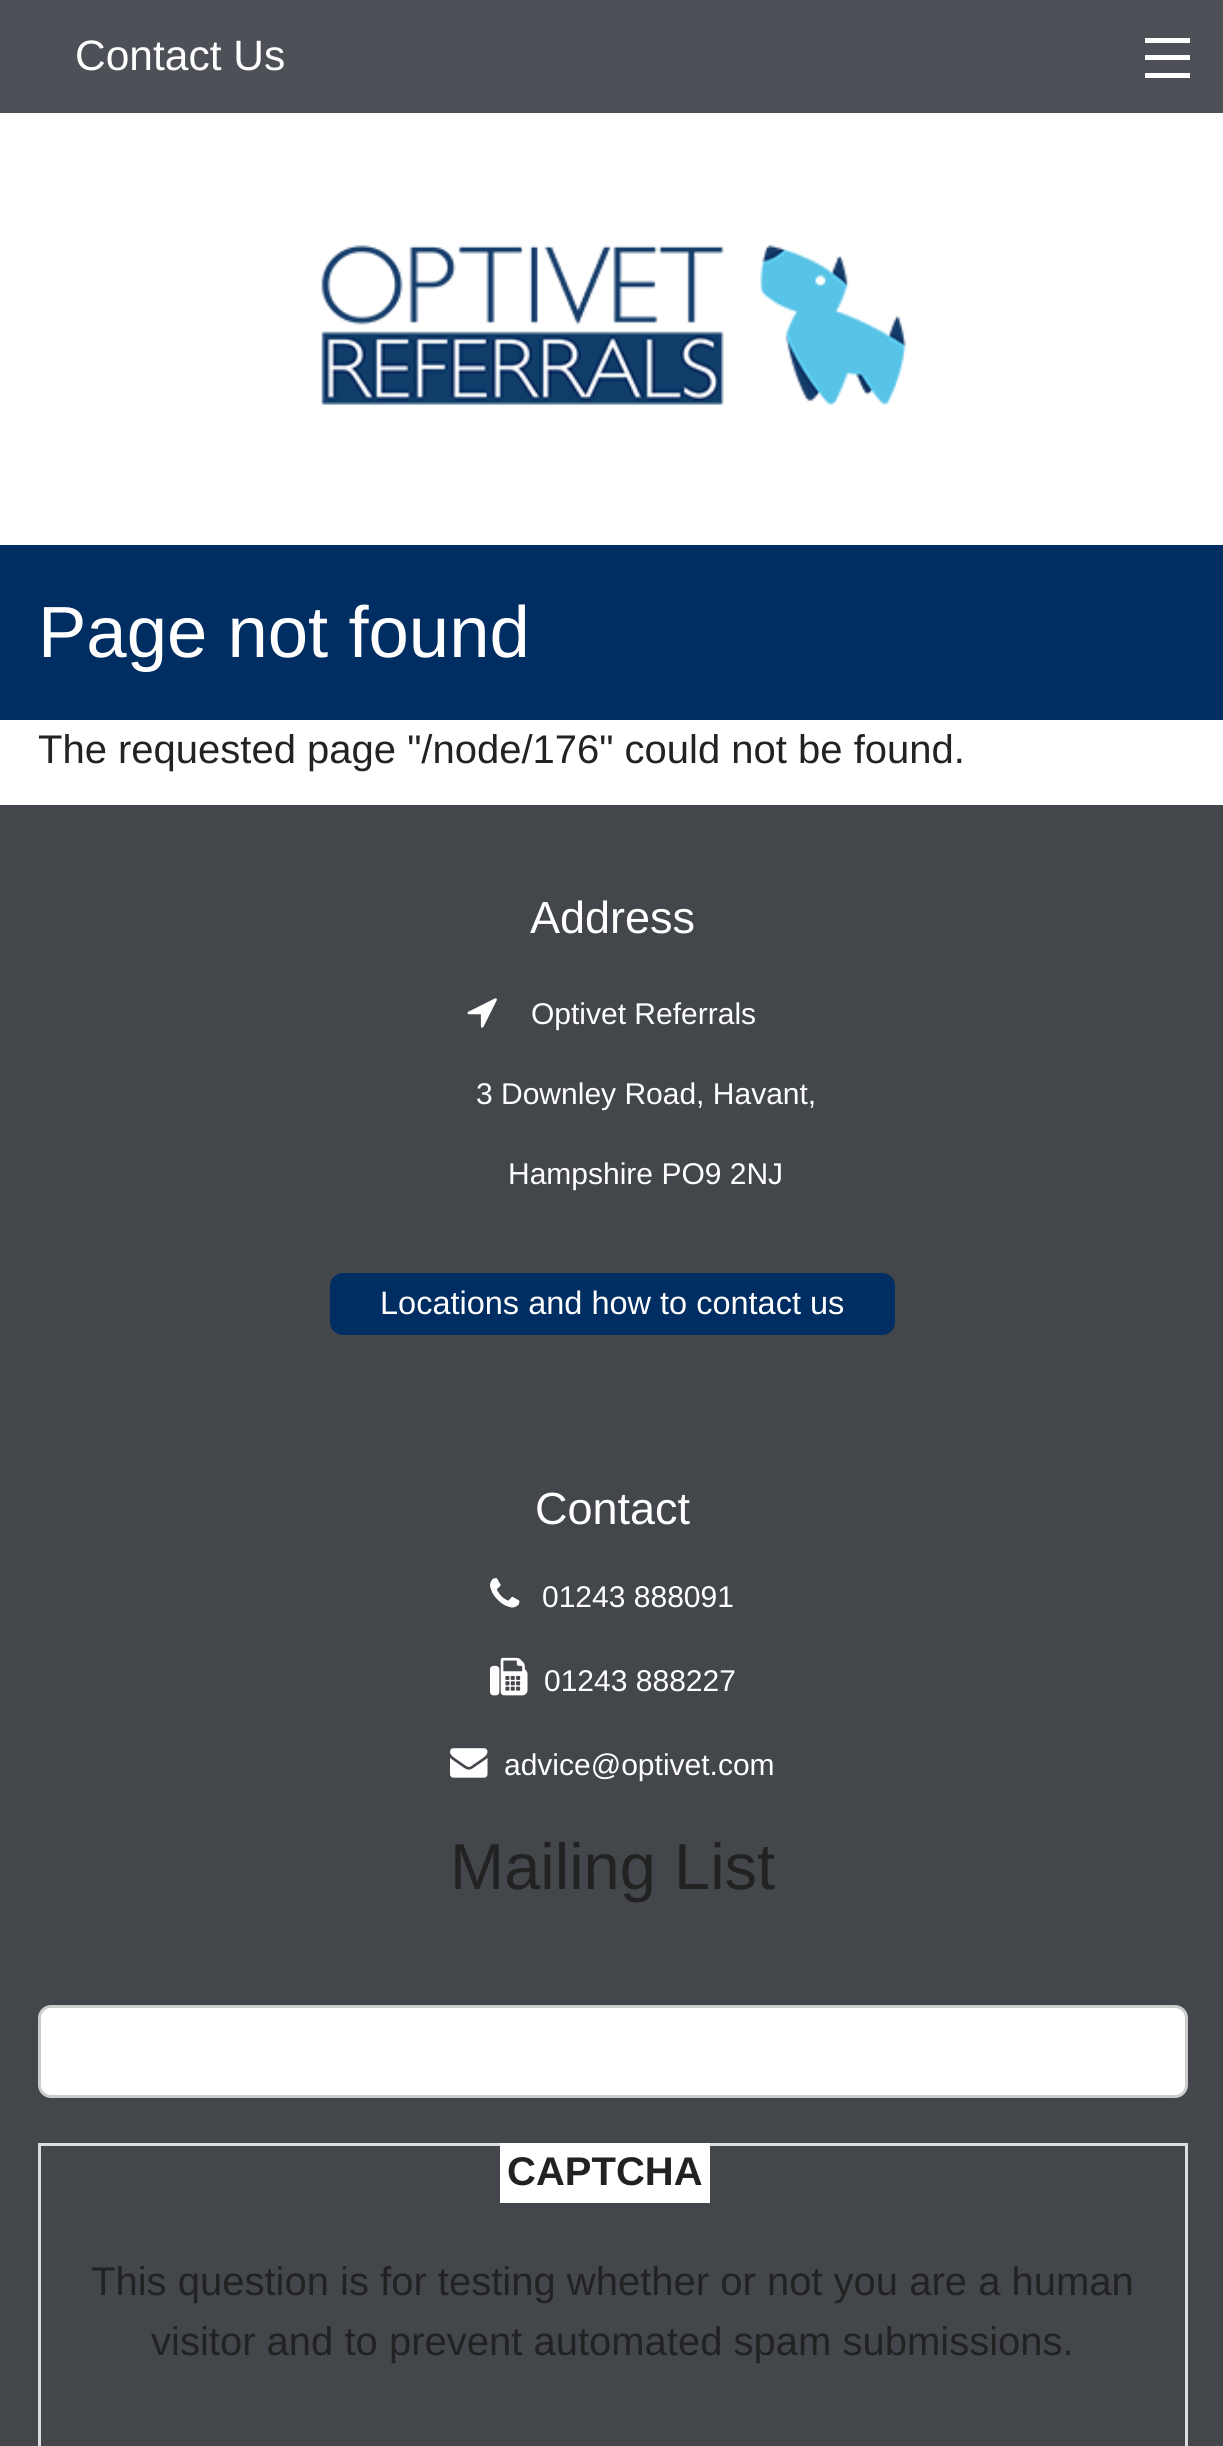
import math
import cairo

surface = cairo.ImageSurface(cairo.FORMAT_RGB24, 1223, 2446)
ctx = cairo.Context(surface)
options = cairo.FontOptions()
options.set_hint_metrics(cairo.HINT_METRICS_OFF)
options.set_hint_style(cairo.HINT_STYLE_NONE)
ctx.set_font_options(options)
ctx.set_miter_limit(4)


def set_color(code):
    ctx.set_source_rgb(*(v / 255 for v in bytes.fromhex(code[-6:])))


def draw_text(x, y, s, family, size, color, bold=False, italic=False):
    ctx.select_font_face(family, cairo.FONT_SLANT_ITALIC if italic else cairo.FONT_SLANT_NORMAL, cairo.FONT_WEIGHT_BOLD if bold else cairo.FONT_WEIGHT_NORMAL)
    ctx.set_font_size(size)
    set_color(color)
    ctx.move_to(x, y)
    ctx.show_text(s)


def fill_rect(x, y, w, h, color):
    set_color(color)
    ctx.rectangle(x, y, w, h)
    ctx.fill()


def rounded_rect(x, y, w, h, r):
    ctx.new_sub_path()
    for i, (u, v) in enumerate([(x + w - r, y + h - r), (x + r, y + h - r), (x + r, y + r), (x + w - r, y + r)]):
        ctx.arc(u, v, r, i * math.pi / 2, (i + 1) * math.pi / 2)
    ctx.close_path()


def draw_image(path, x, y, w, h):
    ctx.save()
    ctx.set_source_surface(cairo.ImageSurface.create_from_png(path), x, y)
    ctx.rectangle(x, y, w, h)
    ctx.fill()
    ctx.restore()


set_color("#ffffff")
ctx.paint()
fill_rect(0, 0, 1223, 113, "#4d5056")
draw_text(75, 70, "Contact Us", "Liberation Sans", 42.5, "#ffffff")
fill_rect(1145, 73, 45, 5, "#ffffff")
fill_rect(1145, 55, 45, 5, "#ffffff")
fill_rect(1145, 38, 45, 5, "#ffffff")
draw_image("assets/img1.png", 321, 245, 586, 160)
fill_rect(0, 545, 1223, 175, "#002d62")
draw_text(38, 657, "Page not found", "Liberation Sans", 72.5, "#ffffff")
draw_text(38, 763, "The requested page \"/node/176\" could not be found.", "Liberation Sans", 40, "#222222")
fill_rect(0, 805, 1223, 1641, "#43464b")
draw_text(530, 933, "Address", "Liberation Sans", 45, "#ffffff")
draw_image("assets/img2.png", 467, 998, 30, 30)
draw_text(531, 1024, "Optivet Referrals", "Liberation Sans", 30, "#ffffff")
draw_text(476, 1104, "3 Downley Road, Havant,", "Liberation Sans", 30, "#ffffff")
draw_text(508, 1184, "Hampshire PO9 2NJ", "Liberation Sans", 30, "#ffffff")
set_color("#002d62")
rounded_rect(330, 1273, 565, 62, 13)
ctx.fill()
draw_text(380, 1314, "Locations and how to contact us", "Liberation Sans", 32.5, "#ffffff")
draw_text(535, 1524, "Contact", "Liberation Sans", 45, "#ffffff")
draw_image("assets/img3.png", 490, 1578, 30, 30)
draw_text(542, 1607, "01243 888091", "Liberation Sans", 30, "#ffffff")
draw_image("assets/img4.png", 490, 1657, 38, 39)
draw_text(544, 1691, "01243 888227", "Liberation Sans", 30, "#ffffff")
draw_image("assets/img5.png", 450, 1748, 38, 30)
draw_text(504, 1775, "advice@optivet.com", "Liberation Sans", 30, "#ffffff")
draw_text(450, 1889, "Mailing List", "Liberation Sans", 65, "#222222")
set_color("#ffffff")
rounded_rect(39.5, 2006.5, 1147, 90, 11.5)
ctx.fill_preserve()
set_color("#cccccc")
ctx.set_line_width(3)
ctx.stroke()
ctx.rectangle(39.5, 2144.5, 1147, 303)
set_color("#dddddd")
ctx.stroke()
fill_rect(500, 2143, 210, 60, "#ffffff")
draw_text(507, 2185, "CAPTCHA", "Liberation Sans", 40, "#222222", bold=True)
draw_text(91, 2295, "This question is for testing whether or not you are a human", "Liberation Sans", 40, "#222222")
draw_text(151, 2355, "visitor and to prevent automated spam submissions.", "Liberation Sans", 40, "#222222")
surface.write_to_png("output.png")
